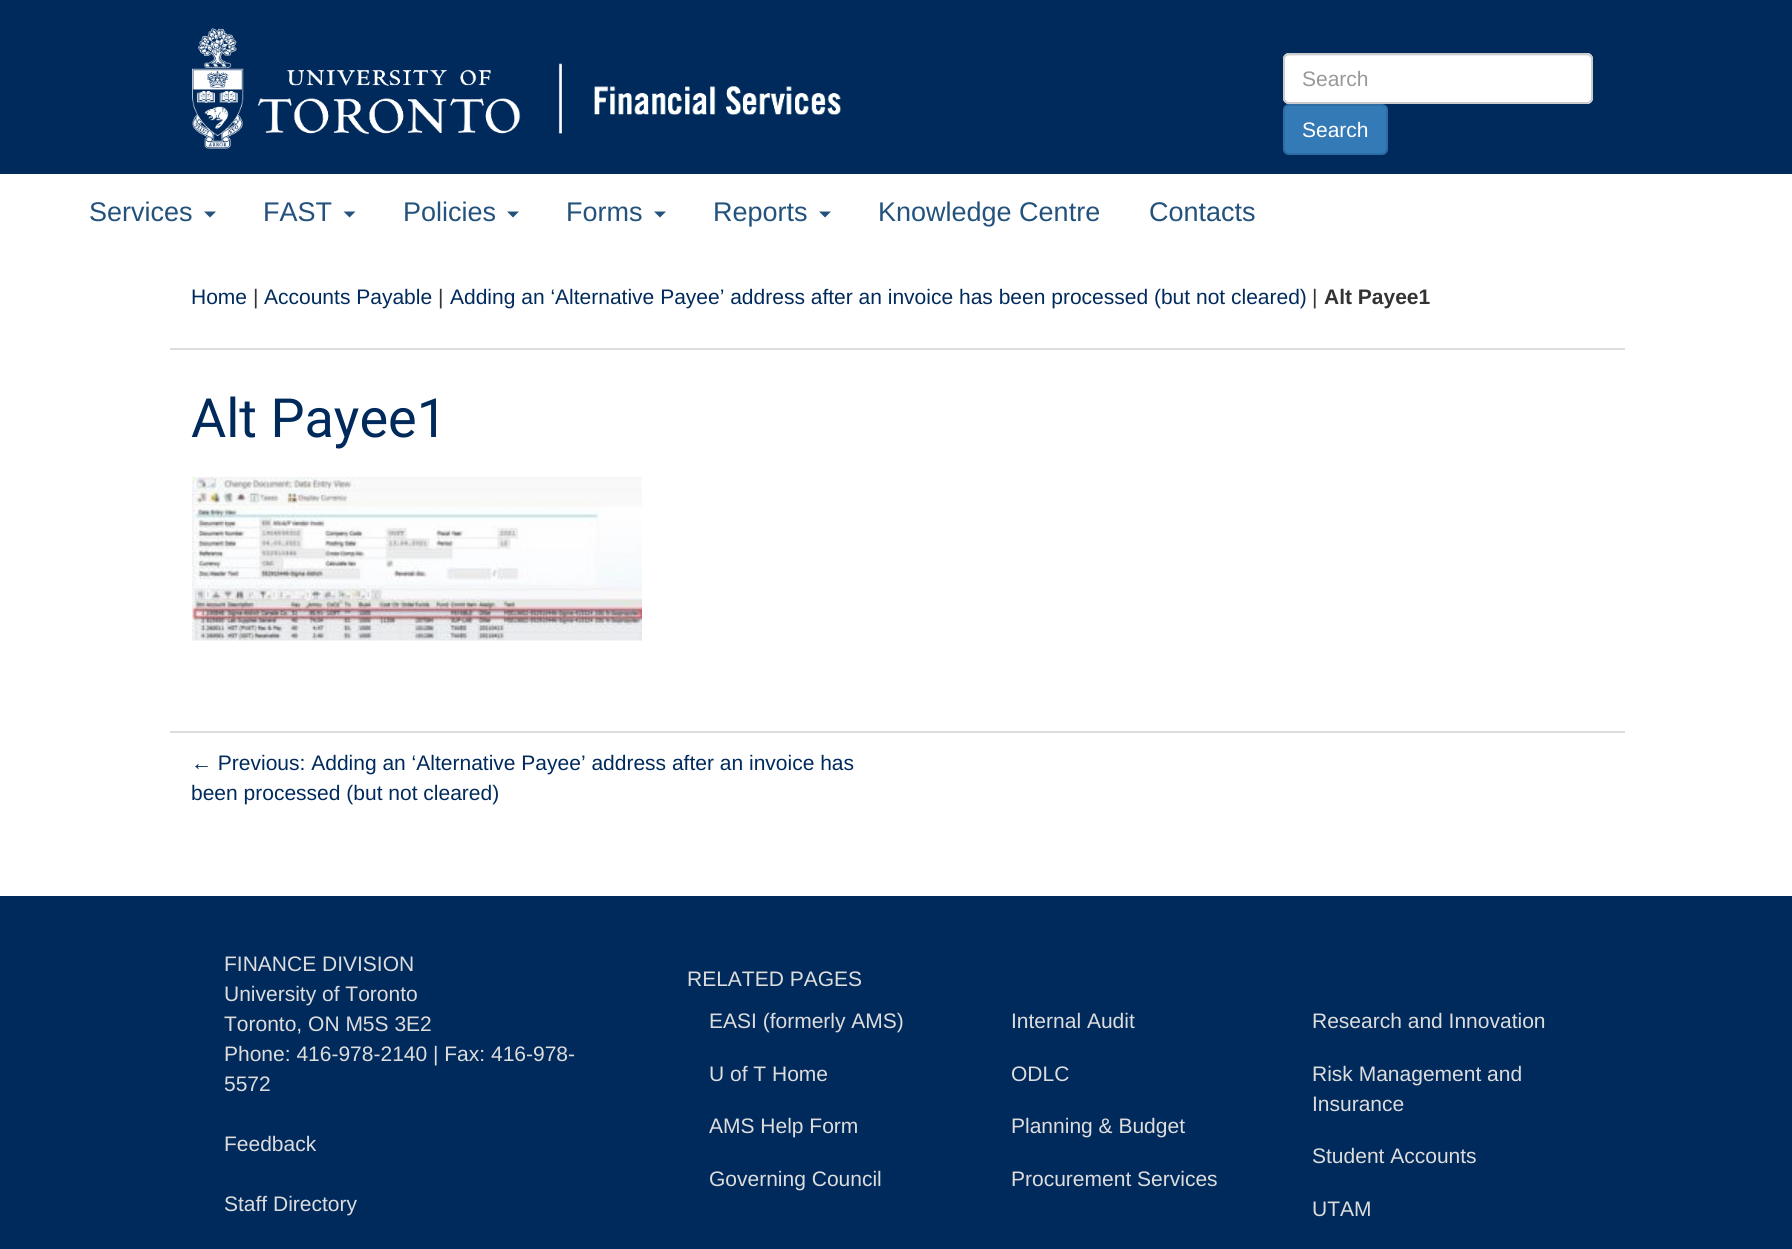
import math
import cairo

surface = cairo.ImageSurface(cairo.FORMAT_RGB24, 1792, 1249)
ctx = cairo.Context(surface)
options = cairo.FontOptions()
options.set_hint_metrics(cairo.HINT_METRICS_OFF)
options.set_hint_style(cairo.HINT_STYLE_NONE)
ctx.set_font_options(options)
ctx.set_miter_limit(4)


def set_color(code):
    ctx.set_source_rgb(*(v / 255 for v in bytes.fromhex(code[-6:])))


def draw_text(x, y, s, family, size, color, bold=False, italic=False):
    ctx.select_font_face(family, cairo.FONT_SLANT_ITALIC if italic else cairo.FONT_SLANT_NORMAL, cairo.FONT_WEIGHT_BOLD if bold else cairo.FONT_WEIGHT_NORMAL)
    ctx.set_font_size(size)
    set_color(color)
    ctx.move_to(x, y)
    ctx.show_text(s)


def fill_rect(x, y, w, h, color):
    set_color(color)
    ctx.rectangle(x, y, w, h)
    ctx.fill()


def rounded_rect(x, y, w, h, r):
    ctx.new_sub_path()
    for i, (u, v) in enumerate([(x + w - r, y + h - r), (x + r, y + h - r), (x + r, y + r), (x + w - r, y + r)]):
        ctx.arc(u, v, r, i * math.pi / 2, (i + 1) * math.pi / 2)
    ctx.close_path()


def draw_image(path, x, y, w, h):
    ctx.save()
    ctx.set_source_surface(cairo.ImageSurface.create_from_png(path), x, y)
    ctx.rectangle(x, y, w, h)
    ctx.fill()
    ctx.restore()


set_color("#ffffff")
ctx.paint()
fill_rect(0, 0, 1792, 174, "#002a5c")
draw_image("assets/img1.png", 192, 28, 370, 121)
draw_image("assets/img2.png", 594, 86, 247, 29)
set_color("#ffffff")
rounded_rect(1283, 53, 310, 51, 6)
ctx.fill()
set_color("#ececec")
ctx.new_path()
ctx.move_to(1288, 56)
ctx.line_to(1587, 56)
ctx.curve_to(1589, 56, 1592, 58, 1592, 60)
ctx.curve_to(1592, 57, 1590, 54, 1587, 54)
ctx.line_to(1289, 54)
ctx.curve_to(1286, 54, 1284, 57, 1284, 60)
ctx.curve_to(1284, 58, 1286, 56, 1288, 56)
ctx.close_path()
ctx.fill()
rounded_rect(1284, 54, 308, 49, 5)
set_color("#cccccc")
ctx.stroke()
draw_text(1302, 86, "Search", "Liberation Sans", 21, "#999999")
set_color("#337ab7")
rounded_rect(1284, 105, 103, 49, 5)
ctx.fill_preserve()
set_color("#2e6da4")
ctx.stroke()
draw_text(1302, 137, "Search", "Liberation Sans", 21, "#ffffff")
draw_text(89, 221, "Services", "Liberation Sans", 27, "#23527c")
ctx.new_path()
ctx.move_to(204, 211.5)
ctx.line_to(216, 211.5)
ctx.line_to(210, 217.5)
ctx.close_path()
ctx.fill()
draw_text(263, 221, "FAST", "Liberation Sans", 27, "#23527c")
ctx.new_path()
ctx.move_to(343.5, 211.5)
ctx.line_to(355.5, 211.5)
ctx.line_to(349.5, 217.5)
ctx.close_path()
ctx.fill()
draw_text(403, 221, "Policies", "Liberation Sans", 27, "#23527c")
ctx.new_path()
ctx.move_to(507, 211.5)
ctx.line_to(519, 211.5)
ctx.line_to(513, 217.5)
ctx.close_path()
ctx.fill()
draw_text(566, 221, "Forms", "Liberation Sans", 27, "#23527c")
ctx.new_path()
ctx.move_to(654, 211.5)
ctx.line_to(666, 211.5)
ctx.line_to(660, 217.5)
ctx.close_path()
ctx.fill()
draw_text(713, 221, "Reports", "Liberation Sans", 27, "#23527c")
ctx.new_path()
ctx.move_to(819, 211.5)
ctx.line_to(831, 211.5)
ctx.line_to(825, 217.5)
ctx.close_path()
ctx.fill()
draw_text(878, 221, "Knowledge Centre", "Liberation Sans", 27, "#23527c")
draw_text(1149, 221, "Contacts", "Liberation Sans", 27, "#23527c")
fill_rect(170, 348, 1455, 2, "#dddddd")
draw_text(191, 304, "Home", "Liberation Sans", 21, "#002a5c")
draw_text(253, 304, "|", "Liberation Sans", 21, "#333333")
draw_text(264, 304, "Accounts Payable", "Liberation Sans", 21, "#002a5c")
draw_text(438, 304, "|", "Liberation Sans", 21, "#333333")
draw_text(450, 304, "Adding an ‘Alternative Payee’ address after an invoice has been processed (but not cleared)", "Liberation Sans", 21, "#002a5c")
draw_text(1312, 304, "|", "Liberation Sans", 21, "#333333")
draw_text(1324, 304, "Alt Payee1", "Liberation Sans", 21, "#333333", bold=True)
draw_text(191, 437, "Alt Payee1", "Roboto", 54, "#002a5c")
draw_image("assets/img3.png", 192, 477, 450, 164)
fill_rect(170, 731, 1455, 2, "#dddddd")
draw_text(191, 770, "← Previous: Adding an ‘Alternative Payee’ address after an invoice has", "Liberation Sans", 21, "#002a5c")
draw_text(191, 800, "been processed (but not cleared)", "Liberation Sans", 21, "#002a5c")
fill_rect(0, 896, 1792, 353, "#002a5c")
draw_text(224, 971, "FINANCE DIVISION", "Liberation Sans", 21, "#dddddd")
draw_text(224, 1001, "University of Toronto", "Liberation Sans", 21, "#dddddd")
draw_text(224, 1031, "Toronto, ON M5S 3E2", "Liberation Sans", 21, "#dddddd")
draw_text(224, 1061, "Phone: 416-978-2140 | Fax: 416-978-", "Liberation Sans", 21, "#dddddd")
draw_text(224, 1091, "5572", "Liberation Sans", 21, "#dddddd")
draw_text(224, 1151, "Feedback", "Liberation Sans", 21, "#dddddd")
draw_text(224, 1211, "Staff Directory", "Liberation Sans", 21, "#dddddd")
draw_text(687, 986, "RELATED PAGES", "Liberation Sans", 21, "#dddddd")
draw_text(709, 1028, "EASI (formerly AMS)", "Liberation Sans", 21, "#dddddd")
draw_text(709, 1081, "U of T Home", "Liberation Sans", 21, "#dddddd")
draw_text(709, 1133, "AMS Help Form", "Liberation Sans", 21, "#dddddd")
draw_text(709, 1186, "Governing Council", "Liberation Sans", 21, "#dddddd")
draw_text(1011, 1028, "Internal Audit", "Liberation Sans", 21, "#dddddd")
draw_text(1011, 1081, "ODLC", "Liberation Sans", 21, "#dddddd")
draw_text(1011, 1133, "Planning & Budget", "Liberation Sans", 21, "#dddddd")
draw_text(1011, 1186, "Procurement Services", "Liberation Sans", 21, "#dddddd")
draw_text(1312, 1028, "Research and Innovation", "Liberation Sans", 21, "#dddddd")
draw_text(1312, 1081, "Risk Management and", "Liberation Sans", 21, "#dddddd")
draw_text(1312, 1111, "Insurance", "Liberation Sans", 21, "#dddddd")
draw_text(1312, 1163, "Student Accounts", "Liberation Sans", 21, "#dddddd")
draw_text(1312, 1216, "UTAM", "Liberation Sans", 21, "#dddddd")
surface.write_to_png("output.png")
